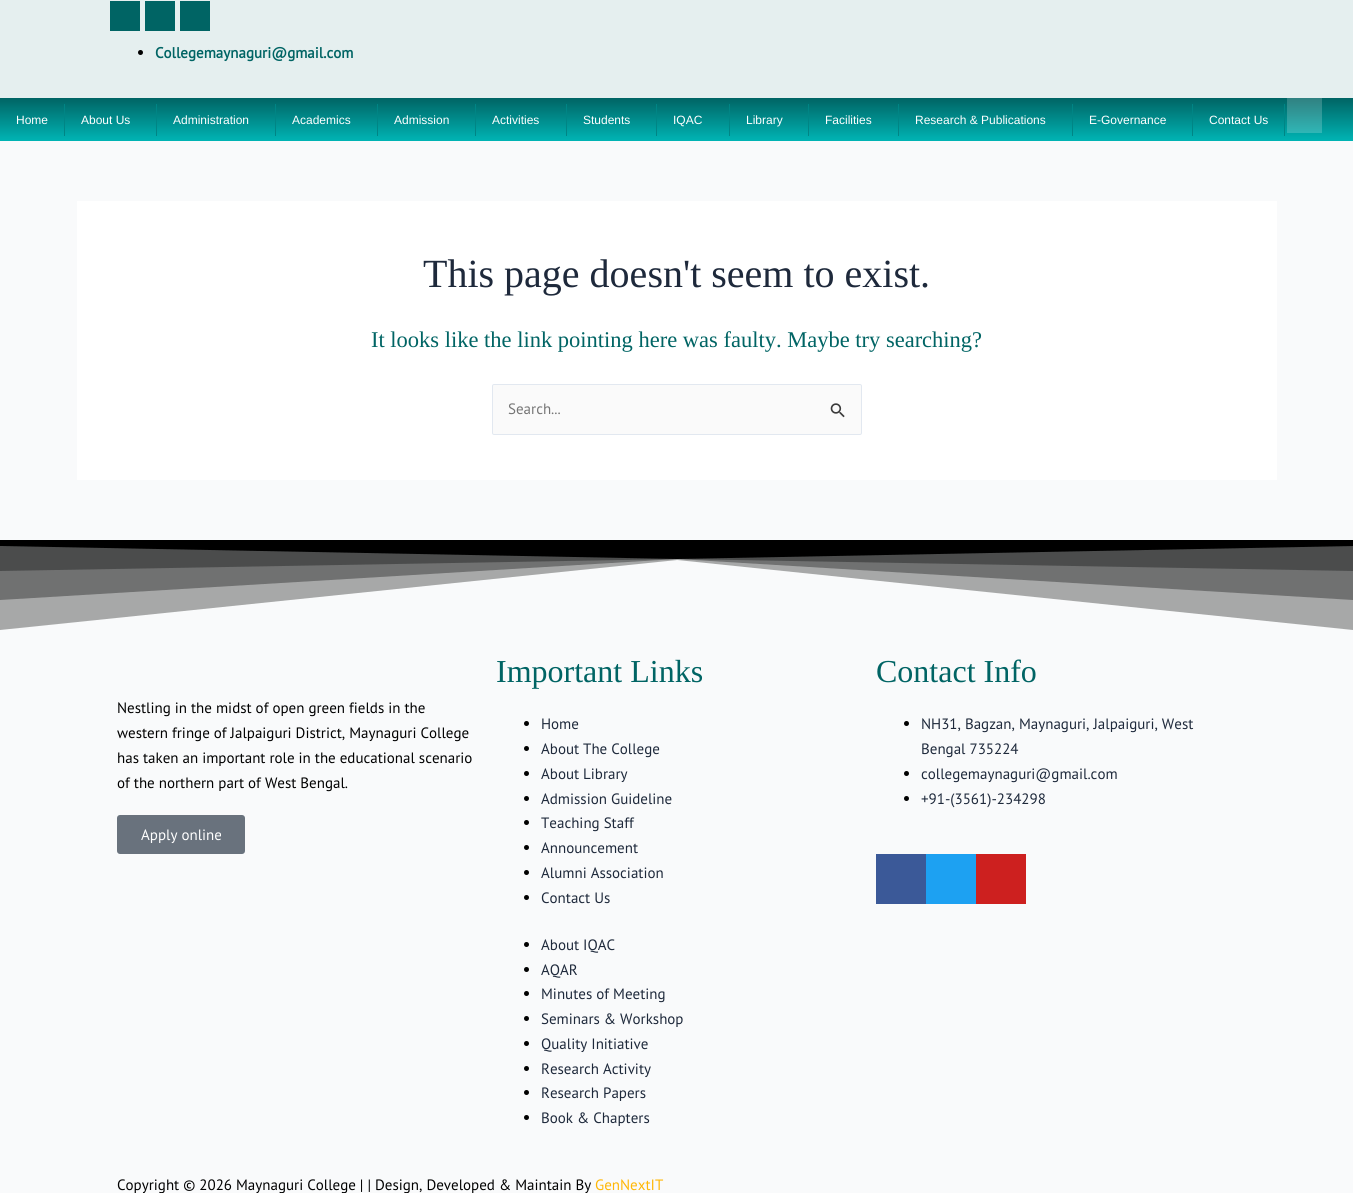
import math
import cairo

surface = cairo.ImageSurface(cairo.FORMAT_RGB24, 1353, 1193)
ctx = cairo.Context(surface)
options = cairo.FontOptions()
options.set_hint_metrics(cairo.HINT_METRICS_OFF)
options.set_hint_style(cairo.HINT_STYLE_NONE)
ctx.set_font_options(options)
ctx.set_miter_limit(4)


def set_color(code):
    ctx.set_source_rgb(*(v / 255 for v in bytes.fromhex(code[-6:])))


def draw_text(x, y, s, family, size, color, bold=False, italic=False):
    ctx.select_font_face(family, cairo.FONT_SLANT_ITALIC if italic else cairo.FONT_SLANT_NORMAL, cairo.FONT_WEIGHT_BOLD if bold else cairo.FONT_WEIGHT_NORMAL)
    ctx.set_font_size(size)
    set_color(color)
    ctx.move_to(x, y)
    ctx.show_text(s)


def fill_rect(x, y, w, h, color):
    set_color(color)
    ctx.rectangle(x, y, w, h)
    ctx.fill()


def rounded_rect(x, y, w, h, r):
    ctx.new_sub_path()
    for i, (u, v) in enumerate([(x + w - r, y + h - r), (x + r, y + h - r), (x + r, y + r), (x + w - r, y + r)]):
        ctx.arc(u, v, r, i * math.pi / 2, (i + 1) * math.pi / 2)
    ctx.close_path()


def draw_image(path, x, y, w, h):
    ctx.save()
    ctx.set_source_surface(cairo.ImageSurface.create_from_png(path), x, y)
    ctx.rectangle(x, y, w, h)
    ctx.fill()
    ctx.restore()


set_color("#f9fafb")
ctx.paint()
fill_rect(0, 0, 1353, 98, "#e5efef")
fill_rect(110, 1, 30, 30, "#006464")
fill_rect(145, 1, 30, 30, "#006464")
fill_rect(180, 1, 30, 30, "#006464")
set_color("#010101")
ctx.arc(140.5, 52.5, 2.5, 0, 2 * math.pi)
ctx.fill()
draw_text(155, 58, "Collegemaynaguri@gmail.com", "PT Sans", 15, "#006464", bold=True)
gradient = cairo.LinearGradient(677, 98, 677, 141)
gradient.add_color_stop_rgba(0, 0, 0.392, 0.392, 1)
gradient.add_color_stop_rgba(1, 0, 0.706, 0.706, 1)
ctx.set_source(gradient)
ctx.rectangle(0, 98, 1353, 43)
ctx.fill()
gradient = cairo.LinearGradient(677, 98, 677, 141)
gradient.add_color_stop_rgba(0, 0.188, 0.506, 0.506, 1)
gradient.add_color_stop_rgba(1, 0.188, 0.761, 0.761, 1)
ctx.set_source(gradient)
ctx.rectangle(1287, 98, 35, 35)
ctx.fill()
fill_rect(64, 104, 1, 32, "#008585")
draw_text(16, 124, "Home", "Liberation Sans", 12, "#ffffff")
fill_rect(156, 104, 1, 32, "#008585")
draw_text(81, 124, "About Us", "Liberation Sans", 12, "#ffffff")
fill_rect(275, 104, 1, 32, "#008585")
draw_text(173, 124, "Administration", "Liberation Sans", 12, "#ffffff")
fill_rect(377, 104, 1, 32, "#008585")
draw_text(292, 124, "Academics", "Liberation Sans", 12, "#ffffff")
fill_rect(475, 104, 1, 32, "#008585")
draw_text(394, 124, "Admission", "Liberation Sans", 12, "#ffffff")
fill_rect(566, 104, 1, 32, "#008585")
draw_text(492, 124, "Activities", "Liberation Sans", 12, "#ffffff")
fill_rect(656, 104, 1, 32, "#008585")
draw_text(583, 124, "Students", "Liberation Sans", 12, "#ffffff")
fill_rect(729, 104, 1, 32, "#008585")
draw_text(673, 124, "IQAC", "Liberation Sans", 12, "#ffffff")
fill_rect(808, 104, 1, 32, "#008585")
draw_text(746, 124, "Library", "Liberation Sans", 12, "#ffffff")
fill_rect(898, 104, 1, 32, "#008585")
draw_text(825, 124, "Facilities", "Liberation Sans", 12, "#ffffff")
fill_rect(1072, 104, 1, 32, "#008585")
draw_text(915, 124, "Research & Publications", "Liberation Sans", 12, "#ffffff")
fill_rect(1192, 104, 1, 32, "#008585")
draw_text(1089, 124, "E-Governance", "Liberation Sans", 12, "#ffffff")
fill_rect(1284, 104, 1, 32, "#008585")
draw_text(1209, 124, "Contact Us", "Liberation Sans", 12, "#ffffff")
fill_rect(77, 201, 1200, 279, "#ffffff")
draw_text(423, 287, "This page doesn't seem to exist.", "Liberation Serif", 40, "#1e293b")
draw_text(371, 347, "It looks like the link pointing here was faulty. Maybe try searching?", "Liberation Serif", 22.5, "#006464")
set_color("#fafafa")
rounded_rect(492.5, 384.5, 369, 50, 1.5)
ctx.fill_preserve()
set_color("#e2e8f0")
ctx.set_line_width(1)
ctx.stroke()
draw_text(508, 414, "Search...", "PT Sans", 15, "#757575")
draw_image("assets/img1.png", 830, 403, 15, 15)
set_color("#a7a8a8")
ctx.new_path()
ctx.move_to(0, 540)
ctx.line_to(0, 630)
ctx.line_to(677, 560)
ctx.line_to(1353, 630)
ctx.line_to(1353, 540)
ctx.close_path()
ctx.fill()
set_color("#707171")
ctx.new_path()
ctx.move_to(0, 540)
ctx.line_to(0, 600)
ctx.line_to(677, 559)
ctx.line_to(1353, 600)
ctx.line_to(1353, 540)
ctx.close_path()
ctx.fill()
set_color("#4b4c4c")
ctx.new_path()
ctx.move_to(0, 540)
ctx.line_to(0, 571)
ctx.line_to(677, 559)
ctx.line_to(1353, 571)
ctx.line_to(1353, 540)
ctx.close_path()
ctx.fill()
set_color("#000000")
ctx.new_path()
ctx.move_to(0, 540)
ctx.line_to(0, 546)
ctx.line_to(677, 559)
ctx.line_to(1353, 546)
ctx.line_to(1353, 540)
ctx.close_path()
ctx.fill()
draw_text(117, 713, "Nestling in the midst of open green fields in the", "PT Sans", 15, "#010101")
draw_text(117, 738, "western fringe of Jalpaiguri District, Maynaguri College", "PT Sans", 15, "#010101")
draw_text(117, 763, "has taken an important role in the educational scenario", "PT Sans", 15, "#010101")
draw_text(117, 788, "of the northern part of West Bengal.", "PT Sans", 15, "#010101")
set_color("#69727d")
rounded_rect(117, 815, 128, 39, 3)
ctx.fill()
draw_text(141, 840, "Apply online", "PT Sans", 15, "#ffffff")
draw_text(496, 682, "Important Links", "Liberation Serif", 32, "#006464")
set_color("#010101")
ctx.new_path()
ctx.arc(526.5, 723.5, 2.5, 0, 2 * math.pi)
ctx.fill()
draw_text(541, 729, "Home", "PT Sans", 15, "#1e293b")
set_color("#010101")
ctx.new_path()
ctx.arc(526.5, 748.5, 2.5, 0, 2 * math.pi)
ctx.fill()
draw_text(541, 754, "About The College", "PT Sans", 15, "#1e293b")
set_color("#010101")
ctx.new_path()
ctx.arc(526.5, 773.5, 2.5, 0, 2 * math.pi)
ctx.fill()
draw_text(541, 779, "About Library", "PT Sans", 15, "#1e293b")
set_color("#010101")
ctx.new_path()
ctx.arc(526.5, 798.5, 2.5, 0, 2 * math.pi)
ctx.fill()
draw_text(541, 804, "Admission Guideline", "PT Sans", 15, "#1e293b")
set_color("#010101")
ctx.new_path()
ctx.arc(526.5, 822.5, 2.5, 0, 2 * math.pi)
ctx.fill()
draw_text(541, 828, "Teaching Staff", "PT Sans", 15, "#1e293b")
set_color("#010101")
ctx.new_path()
ctx.arc(526.5, 847.5, 2.5, 0, 2 * math.pi)
ctx.fill()
draw_text(541, 853, "Announcement", "PT Sans", 15, "#1e293b")
set_color("#010101")
ctx.new_path()
ctx.arc(526.5, 872.5, 2.5, 0, 2 * math.pi)
ctx.fill()
draw_text(541, 878, "Alumni Association", "PT Sans", 15, "#1e293b")
set_color("#010101")
ctx.new_path()
ctx.arc(526.5, 897.5, 2.5, 0, 2 * math.pi)
ctx.fill()
draw_text(541, 903, "Contact Us", "PT Sans", 15, "#1e293b")
set_color("#010101")
ctx.new_path()
ctx.arc(526.5, 944.5, 2.5, 0, 2 * math.pi)
ctx.fill()
draw_text(541, 950, "About IQAC", "PT Sans", 15, "#1e293b")
set_color("#010101")
ctx.new_path()
ctx.arc(526.5, 969.5, 2.5, 0, 2 * math.pi)
ctx.fill()
draw_text(541, 975, "AQAR", "PT Sans", 15, "#1e293b")
set_color("#010101")
ctx.new_path()
ctx.arc(526.5, 993.5, 2.5, 0, 2 * math.pi)
ctx.fill()
draw_text(541, 999, "Minutes of Meeting", "PT Sans", 15, "#1e293b")
set_color("#010101")
ctx.new_path()
ctx.arc(526.5, 1018.5, 2.5, 0, 2 * math.pi)
ctx.fill()
draw_text(541, 1024, "Seminars & Workshop", "PT Sans", 15, "#1e293b")
set_color("#010101")
ctx.new_path()
ctx.arc(526.5, 1043.5, 2.5, 0, 2 * math.pi)
ctx.fill()
draw_text(541, 1049, "Quality Initiative", "PT Sans", 15, "#1e293b")
set_color("#010101")
ctx.new_path()
ctx.arc(526.5, 1068.5, 2.5, 0, 2 * math.pi)
ctx.fill()
draw_text(541, 1074, "Research Activity", "PT Sans", 15, "#1e293b")
set_color("#010101")
ctx.new_path()
ctx.arc(526.5, 1092.5, 2.5, 0, 2 * math.pi)
ctx.fill()
draw_text(541, 1098, "Research Papers", "PT Sans", 15, "#1e293b")
set_color("#010101")
ctx.new_path()
ctx.arc(526.5, 1117.5, 2.5, 0, 2 * math.pi)
ctx.fill()
draw_text(541, 1123, "Book & Chapters", "PT Sans", 15, "#1e293b")
draw_text(876, 682, "Contact Info", "Liberation Serif", 32, "#006464")
set_color("#010101")
ctx.new_path()
ctx.arc(906.5, 723.5, 2.5, 0, 2 * math.pi)
ctx.fill()
draw_text(921, 729, "NH31, Bagzan, Maynaguri, Jalpaiguri, West", "PT Sans", 15, "#1e293b")
draw_text(921, 754, "Bengal 735224", "PT Sans", 15, "#1e293b")
set_color("#010101")
ctx.new_path()
ctx.arc(906.5, 773.5, 2.5, 0, 2 * math.pi)
ctx.fill()
draw_text(921, 779, "collegemaynaguri@gmail.com", "PT Sans", 15, "#1e293b")
set_color("#010101")
ctx.new_path()
ctx.arc(906.5, 798.5, 2.5, 0, 2 * math.pi)
ctx.fill()
draw_text(921, 804, "+91-(3561)-234298", "PT Sans", 15, "#1e293b")
fill_rect(876, 854, 50, 50, "#3b5998")
fill_rect(926, 854, 50, 50, "#1da1f2")
fill_rect(976, 854, 50, 50, "#cd201f")
draw_text(117, 1190, "Copyright © 2026 Maynaguri College | | Design, Developed & Maintain By", "PT Sans", 15, "#010101")
draw_text(595, 1190, "GenNextIT", "PT Sans", 15, "#ffb706")
surface.write_to_png("output.png")
